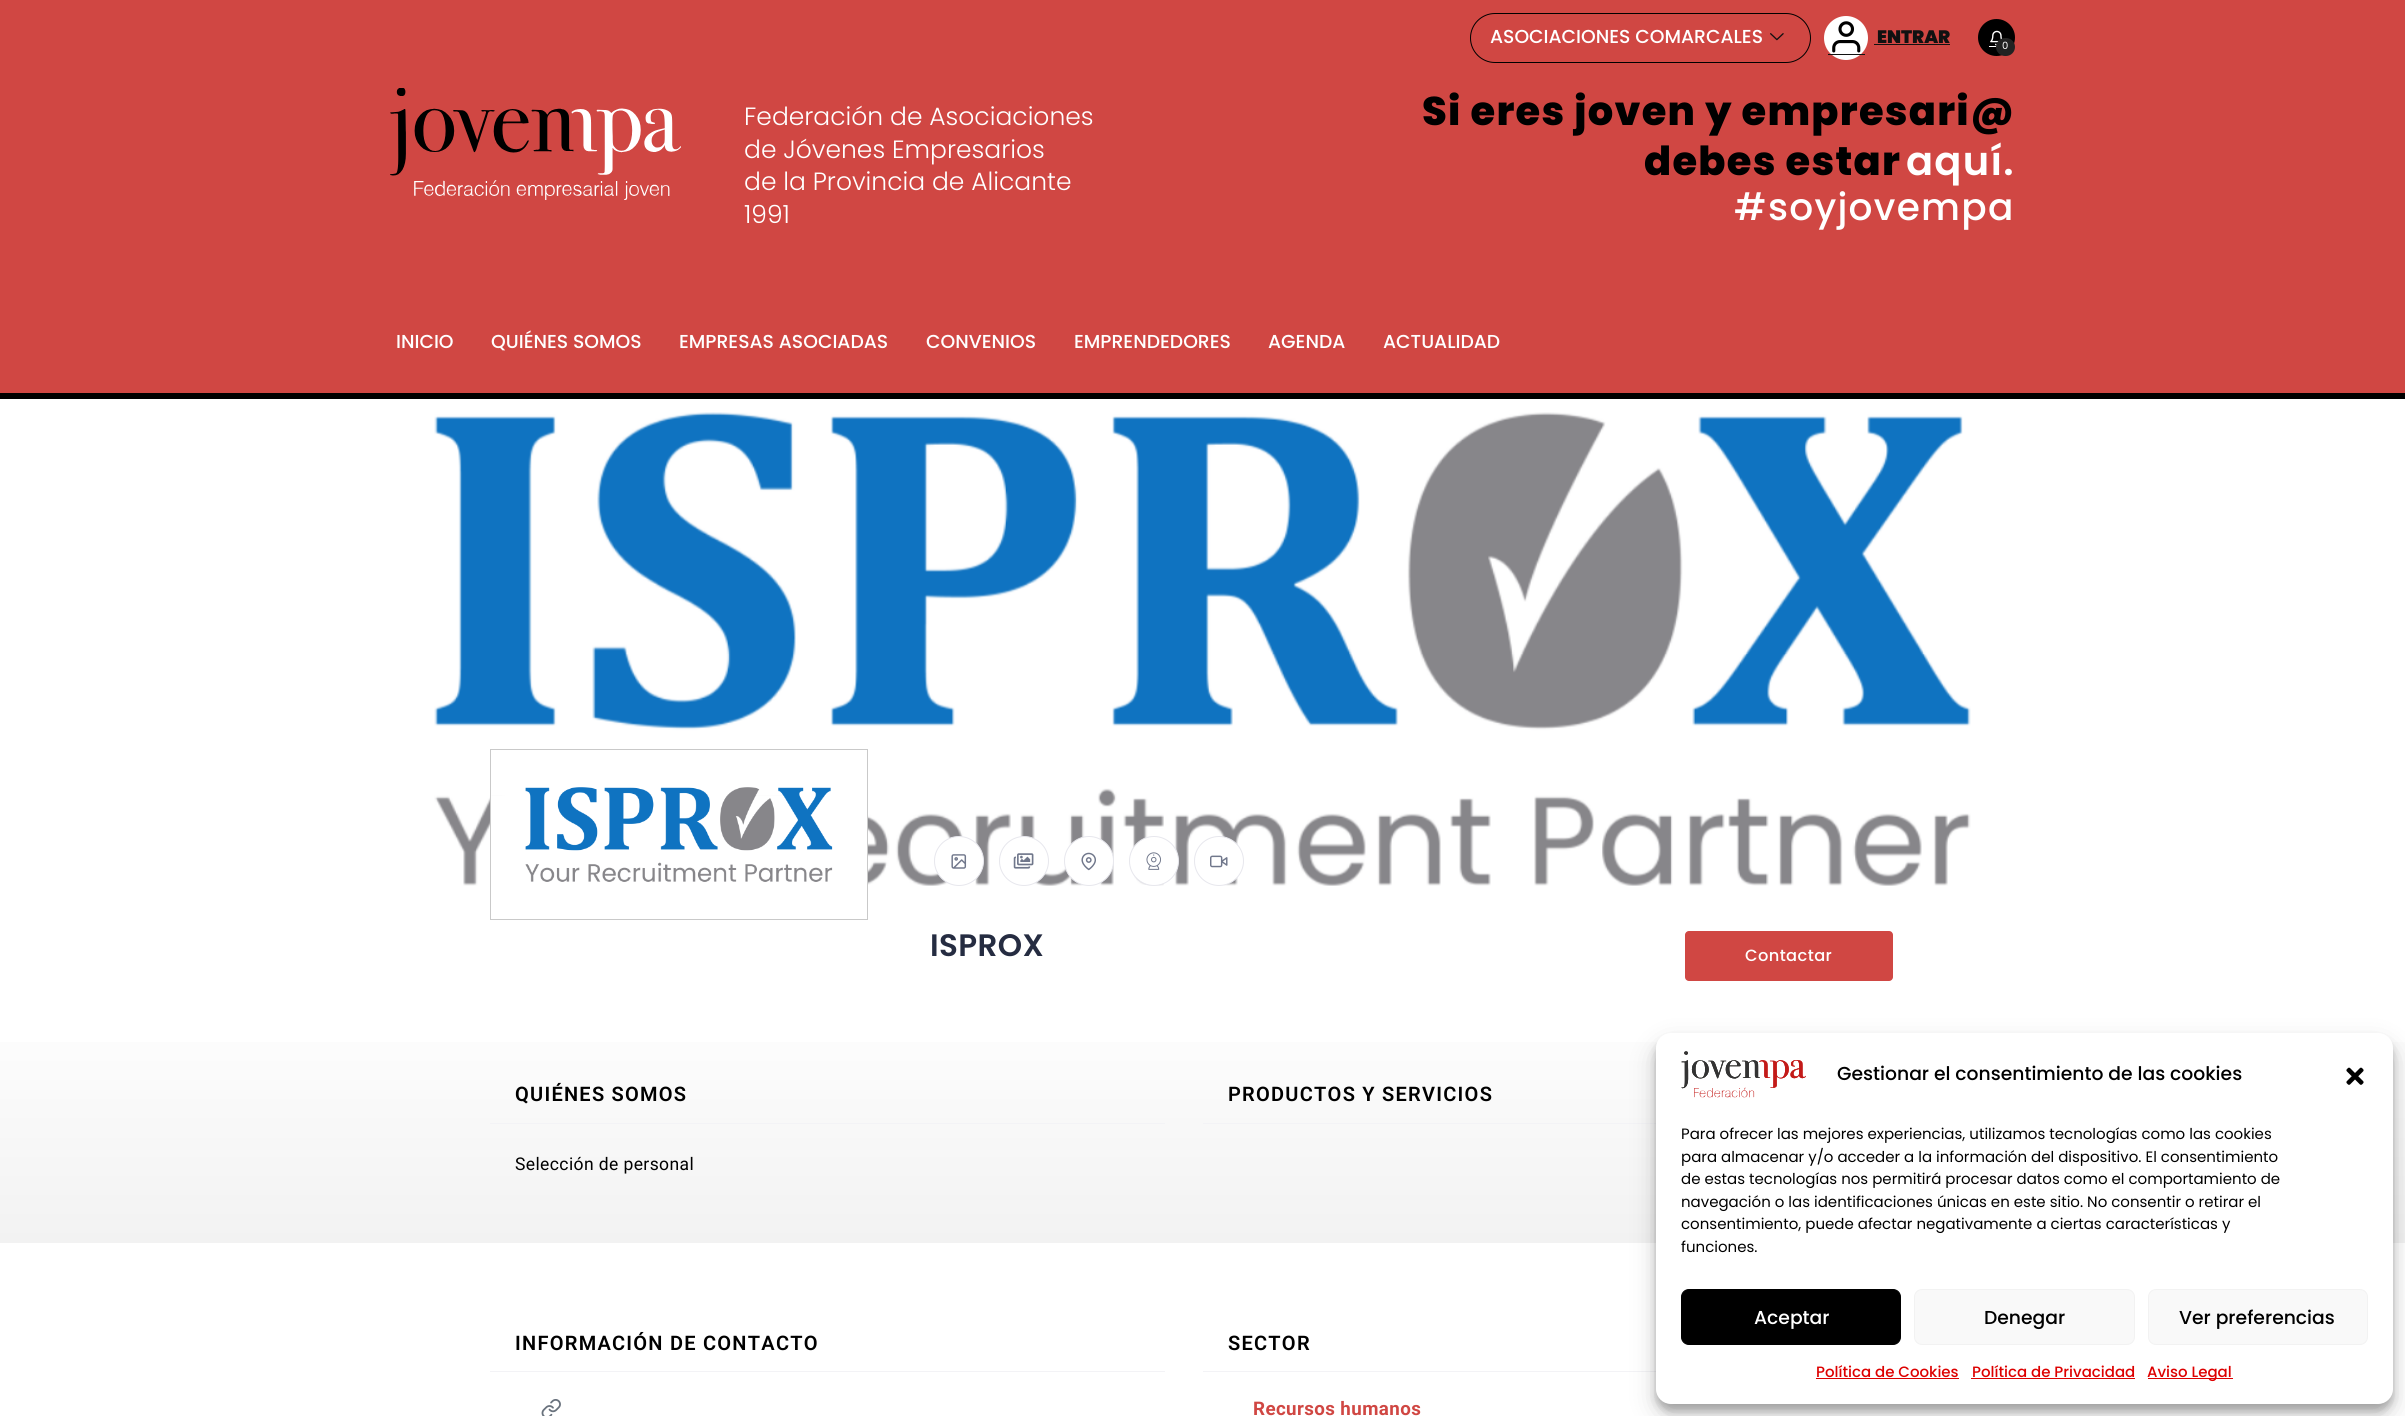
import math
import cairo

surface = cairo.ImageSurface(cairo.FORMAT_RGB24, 2405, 1416)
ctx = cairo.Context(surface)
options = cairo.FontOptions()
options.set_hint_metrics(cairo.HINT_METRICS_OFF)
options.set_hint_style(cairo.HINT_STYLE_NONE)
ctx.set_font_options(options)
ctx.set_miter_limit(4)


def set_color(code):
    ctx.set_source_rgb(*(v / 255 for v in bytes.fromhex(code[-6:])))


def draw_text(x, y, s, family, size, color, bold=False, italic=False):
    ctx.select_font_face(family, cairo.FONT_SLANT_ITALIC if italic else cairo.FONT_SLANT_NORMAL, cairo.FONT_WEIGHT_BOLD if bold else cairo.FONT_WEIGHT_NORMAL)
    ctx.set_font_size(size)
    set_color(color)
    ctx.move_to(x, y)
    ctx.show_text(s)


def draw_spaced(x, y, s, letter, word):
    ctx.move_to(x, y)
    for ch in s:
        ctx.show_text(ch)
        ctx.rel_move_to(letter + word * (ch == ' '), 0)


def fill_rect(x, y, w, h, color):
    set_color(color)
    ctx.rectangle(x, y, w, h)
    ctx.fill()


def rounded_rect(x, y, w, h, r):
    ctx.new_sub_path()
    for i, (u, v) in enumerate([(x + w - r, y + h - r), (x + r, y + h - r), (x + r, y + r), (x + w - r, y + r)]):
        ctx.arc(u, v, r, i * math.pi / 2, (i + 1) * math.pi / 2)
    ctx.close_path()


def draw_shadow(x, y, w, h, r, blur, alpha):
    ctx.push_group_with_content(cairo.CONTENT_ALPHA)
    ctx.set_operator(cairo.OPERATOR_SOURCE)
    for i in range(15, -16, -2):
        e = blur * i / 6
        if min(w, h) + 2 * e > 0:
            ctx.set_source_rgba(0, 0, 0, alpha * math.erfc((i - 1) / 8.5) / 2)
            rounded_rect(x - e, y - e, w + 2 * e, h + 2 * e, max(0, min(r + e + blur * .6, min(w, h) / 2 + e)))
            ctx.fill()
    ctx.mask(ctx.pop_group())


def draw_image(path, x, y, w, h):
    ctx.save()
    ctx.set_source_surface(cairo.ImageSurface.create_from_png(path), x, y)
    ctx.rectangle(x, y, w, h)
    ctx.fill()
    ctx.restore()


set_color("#ffffff")
ctx.paint()
fill_rect(0, 0, 2405, 393, "#d04743")
rounded_rect(1470.5, 13.5, 340, 49, 24.5)
set_color("#000000")
ctx.set_line_width(1)
ctx.stroke()
draw_text(1490, 43, "ASOCIACIONES COMARCALES", "Poppins Medium", 18.75, "#ffffff")
draw_image("assets/img1.png", 1770, 33, 14, 8)
ctx.arc(1846, 38, 22, 0, 2 * math.pi)
ctx.fill()
fill_rect(1828, 54, 37, 1, "#111111")
draw_image("assets/img2.png", 1832, 21, 29, 32)
draw_text(1877, 43, "ENTRAR", "Poppins Black", 18, "#111111")
fill_rect(1874, 44, 76, 1, "#111111")
set_color("#000000")
ctx.new_path()
ctx.arc(1996.5, 37.5, 18.5, 0, 2 * math.pi)
ctx.fill()
draw_image("assets/img3.png", 1990, 30, 13, 16)
fill_rect(1989, 46, 16, 1, "#ffffff")
set_color("#222222")
rounded_rect(1996, 38, 19, 18, 9)
ctx.fill()
draw_text(2002, 49, "0", "Poppins", 10, "#ffffff")
draw_image("assets/img4.png", 390, 88, 291, 112)
draw_text(744, 125, "Federación de Asociaciones", "Poppins Light", 25, "#ffffff")
draw_text(744, 158, "de Jóvenes Empresarios", "Poppins Light", 25, "#ffffff")
draw_text(744, 190, "de la Provincia de Alicante", "Poppins Light", 25, "#ffffff")
draw_text(744, 223, "1991", "Poppins Light", 25, "#ffffff")
ctx.select_font_face("Poppins ExtraBold")
ctx.set_font_size(40)
set_color("#000000")
draw_spaced(1422, 125, "Si eres joven y empresari@", 1.25, 0)
draw_spaced(1644, 175, "debes estar", 1.25, 0)
ctx.select_font_face("Poppins SemiBold")
set_color("#ffffff")
draw_spaced(1906, 175, "aquí.", 1.25, 0)
ctx.select_font_face("Poppins Medium")
ctx.set_font_size(37.5)
draw_spaced(1734, 220, "#soyjovempa", 1.25, 0)
fill_rect(0, 393, 2405, 6, "#000000")
draw_text(396, 348, "INICIO", "Poppins Medium", 18.75, "#ffffff")
draw_text(491, 348, "QUIÉNES SOMOS", "Poppins Medium", 18.75, "#ffffff")
draw_text(679, 348, "EMPRESAS ASOCIADAS", "Poppins Medium", 18.75, "#ffffff")
draw_text(926, 348, "CONVENIOS", "Poppins Medium", 18.75, "#ffffff")
draw_text(1074, 348, "EMPRENDEDORES", "Poppins Medium", 18.75, "#ffffff")
draw_text(1268, 348, "AGENDA", "Poppins Medium", 18.75, "#ffffff")
draw_text(1383, 348, "ACTUALIDAD", "Poppins Medium", 18.75, "#ffffff")
draw_image("assets/img5.png", 434, 412, 1537, 474)
fill_rect(491, 796, 376, 90, "#ffffff")
ctx.rectangle(490.5, 749.5, 377, 170)
set_color("#c9c9c9")
ctx.stroke()
draw_image("assets/img6.png", 525, 787, 308, 95)
set_color("#ffffff")
ctx.arc(959, 861, 24.5, 0, 2 * math.pi)
ctx.fill_preserve()
set_color("#e7e7ed")
ctx.stroke()
draw_image("assets/img7.png", 951, 854, 16, 15)
set_color("#ffffff")
ctx.arc(1024, 861, 24.5, 0, 2 * math.pi)
ctx.fill_preserve()
set_color("#e7e7ed")
ctx.stroke()
draw_image("assets/img8.png", 1013, 853, 21, 16)
set_color("#ffffff")
ctx.arc(1089, 861, 24.5, 0, 2 * math.pi)
ctx.fill_preserve()
set_color("#e7e7ed")
ctx.stroke()
draw_image("assets/img9.png", 1081, 852, 15, 19)
set_color("#ffffff")
ctx.arc(1154, 861, 24.5, 0, 2 * math.pi)
ctx.fill_preserve()
set_color("#e7e7ed")
ctx.stroke()
draw_image("assets/img10.png", 1146, 852, 15, 18)
set_color("#ffffff")
ctx.arc(1219, 861, 24.5, 0, 2 * math.pi)
ctx.fill_preserve()
set_color("#e7e7ed")
ctx.stroke()
draw_image("assets/img11.png", 1210, 855, 18, 13)
ctx.select_font_face("Poppins SemiBold")
ctx.set_font_size(31)
set_color("#252c41")
draw_spaced(930, 956, "ISPROX", 0.4, 0)
set_color("#d04743")
rounded_rect(1685, 931, 208, 50, 4)
ctx.fill()
ctx.select_font_face("Poppins Medium")
ctx.set_font_size(16.25)
set_color("#ffffff")
draw_spaced(1745, 961, "Contactar", 0.4, 0)
gradient = cairo.LinearGradient(1203, 1243, 1203, 994)
gradient.add_color_stop_rgba(0, 0.949, 0.949, 0.949, 1)
gradient.add_color_stop_rgba(1, 1, 1, 1, 1)
ctx.set_source(gradient)
ctx.rectangle(0, 1042, 2405, 201)
ctx.fill()
fill_rect(490, 1123, 675, 1, "#f3f3f6")
ctx.select_font_face("Roboto SemiBold")
ctx.set_font_size(20)
set_color("#000000")
draw_spaced(515, 1101, "QUIÉNES SOMOS", 1.25, 0)
ctx.select_font_face("Roboto")
ctx.set_font_size(17.5)
draw_spaced(515, 1170, "Selección de personal", 0.4, 0)
fill_rect(1203, 1123, 453, 1, "#f3f3f6")
ctx.select_font_face("Roboto SemiBold")
ctx.set_font_size(20)
set_color("#000000")
draw_spaced(1228, 1101, "PRODUCTOS Y SERVICIOS", 1.25, 0)
fill_rect(490, 1371, 675, 1, "#f3f3f6")
set_color("#000000")
draw_spaced(515, 1350, "INFORMACIÓN DE CONTACTO", 1.25, 0)
draw_image("assets/img12.png", 541, 1399, 20, 17)
fill_rect(1203, 1371, 453, 1, "#f3f3f6")
set_color("#000000")
draw_spaced(1228, 1350, "SECTOR", 1.25, 0)
ctx.select_font_face("Roboto", cairo.FONT_SLANT_NORMAL, cairo.FONT_WEIGHT_BOLD)
ctx.set_font_size(18.75)
set_color("#d04743")
draw_spaced(1253, 1415, "Recursos humanos", 0.4, 0)
set_color("#000000")
draw_shadow(1656, 1040, 737, 371, 15, 4, 0.23)
draw_shadow(1656, 1045, 737, 371, 15, 12.5, 0.19)
set_color("#ffffff")
rounded_rect(1656, 1033, 737, 371, 15)
ctx.fill()
draw_image("assets/img13.png", 1681, 1051, 125, 47)
draw_text(1837, 1080, "Gestionar el consentimiento de las cookies", "Poppins Medium", 18.75, "#000000")
draw_image("assets/img14.png", 2346, 1067, 18, 18)
draw_text(1681, 1139, "Para ofrecer las mejores experiencias, utilizamos tecnologías como las cookies", "Poppins", 15, "#000000")
draw_text(1681, 1162, "para almacenar y/o acceder a la información del dispositivo. El consentimiento", "Poppins", 15, "#000000")
draw_text(1681, 1184, "de estas tecnologías nos permitirá procesar datos como el comportamiento de", "Poppins", 15, "#000000")
draw_text(1681, 1207, "navegación o las identificaciones únicas en este sitio. No consentir o retirar el", "Poppins", 15, "#000000")
draw_text(1681, 1229, "consentimiento, puede afectar negativamente a ciertas características y", "Poppins", 15, "#000000")
draw_text(1681, 1252, "funciones.", "Poppins", 15, "#000000")
rounded_rect(1681.5, 1289.5, 219, 55, 7.5)
ctx.fill_preserve()
ctx.stroke()
draw_text(1754, 1324, "Aceptar", "Poppins Medium", 18.75, "#ffffff")
set_color("#f9f9f9")
rounded_rect(1914.5, 1289.5, 220, 55, 7.5)
ctx.fill_preserve()
set_color("#f2f2f2")
ctx.stroke()
draw_text(1984, 1324, "Denegar", "Poppins Medium", 18.75, "#000000")
set_color("#f9f9f9")
rounded_rect(2148.5, 1289.5, 219, 55, 7.5)
ctx.fill_preserve()
set_color("#f2f2f2")
ctx.stroke()
draw_text(2179, 1324, "Ver preferencias", "Poppins Medium", 18.75, "#000000")
draw_text(1816, 1377, "Política de Cookies", "Poppins Medium", 15, "#dd0000")
fill_rect(1816, 1378, 143, 1, "#dd0000")
draw_text(1972, 1377, "Política de Privacidad", "Poppins Medium", 15, "#dd0000")
fill_rect(1971, 1378, 164, 1, "#dd0000")
fill_rect(2148, 1378, 85, 1, "#dd0000")
draw_text(2147, 1377, "Aviso Legal", "Poppins Medium", 15, "#dd0000")
surface.write_to_png("output.png")
